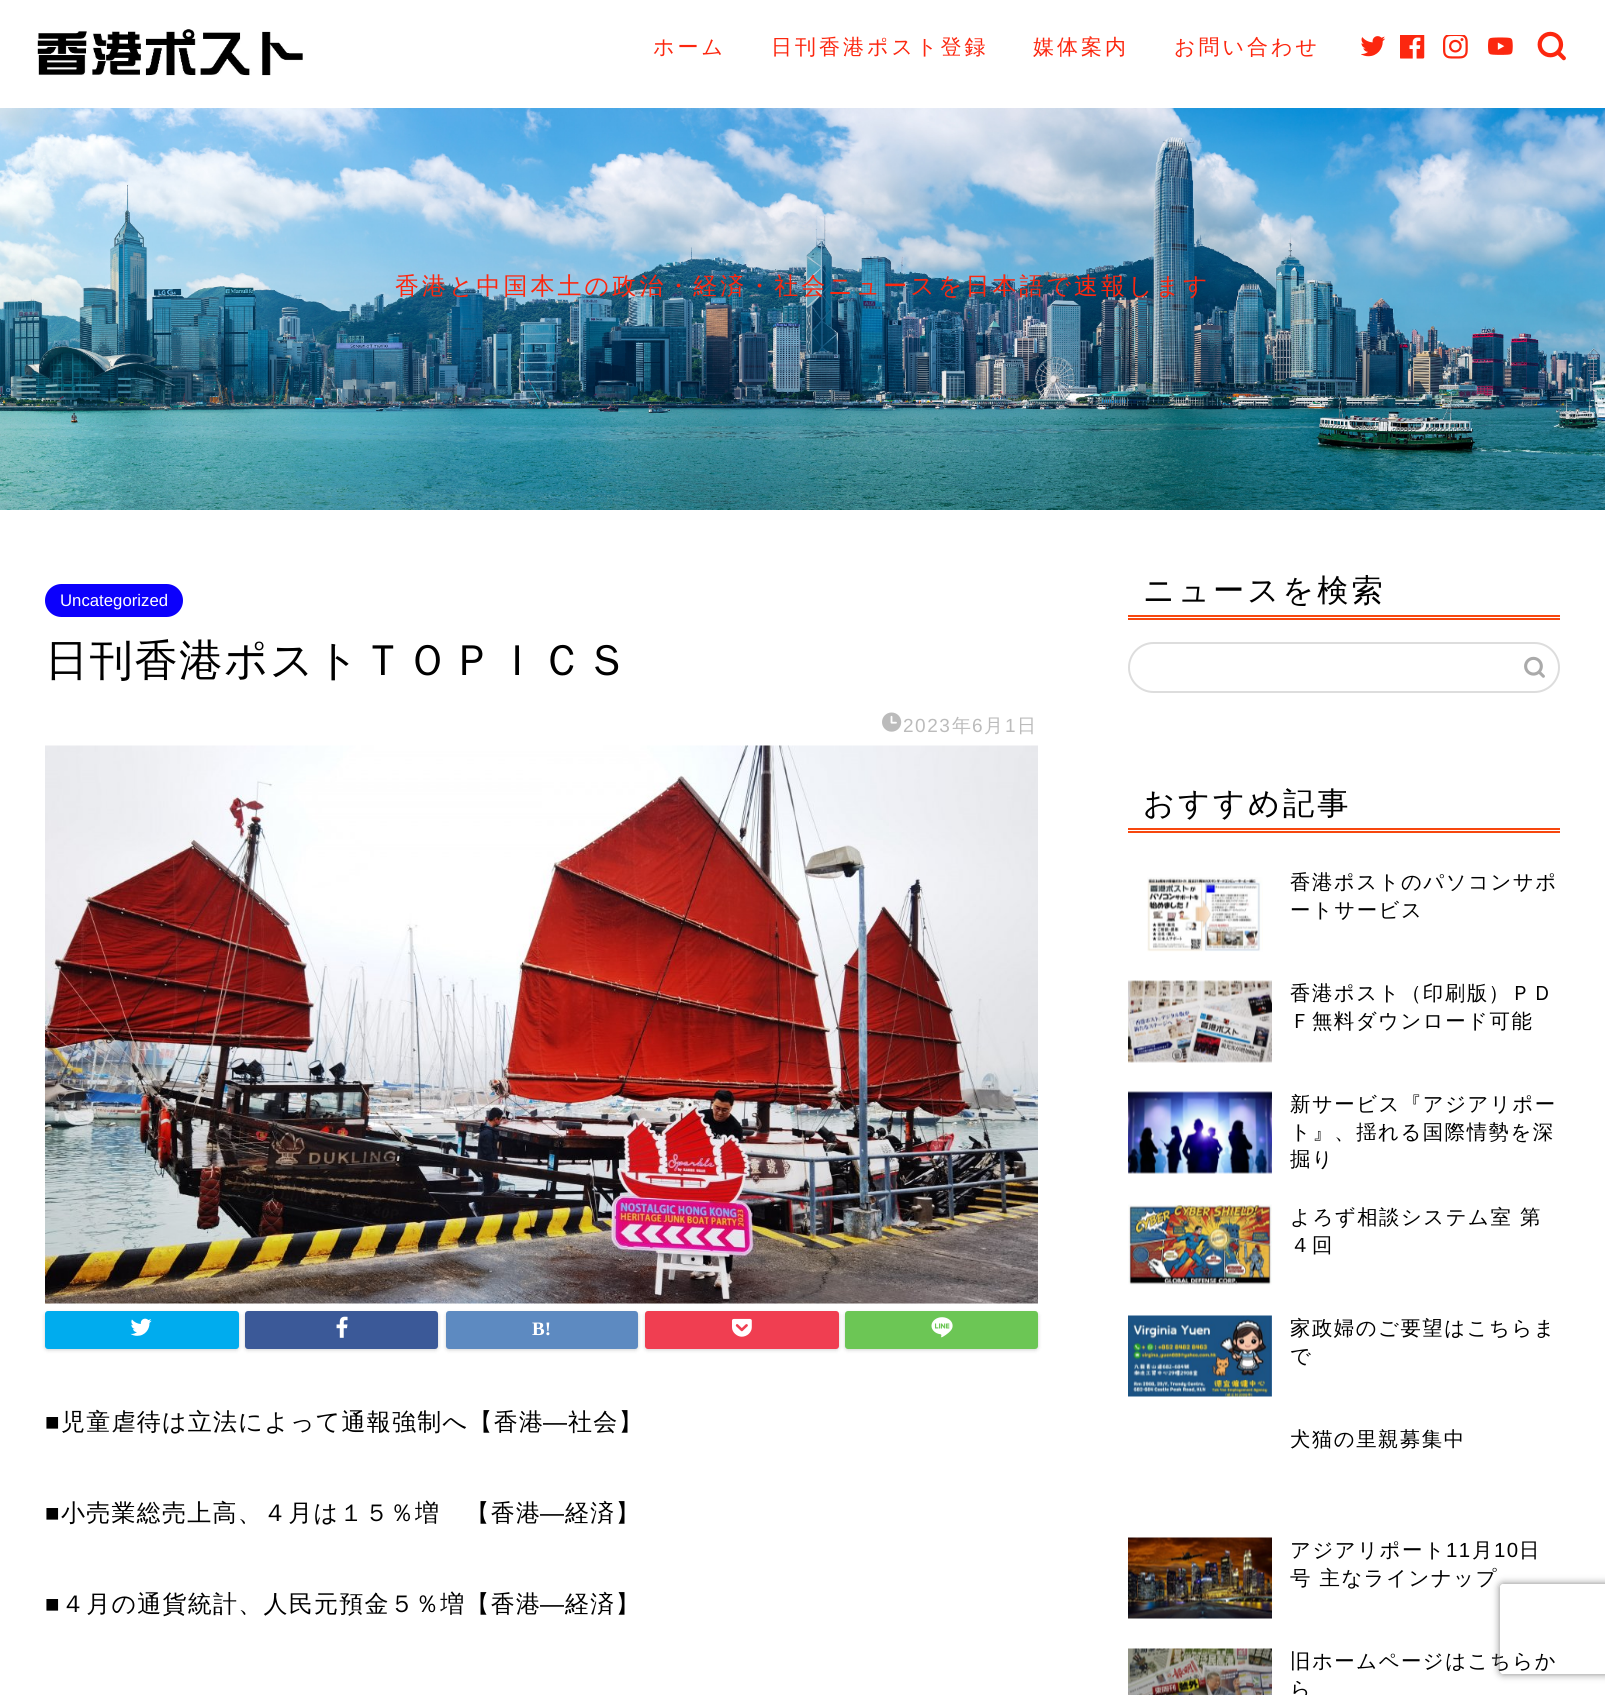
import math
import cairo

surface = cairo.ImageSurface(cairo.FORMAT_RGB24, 1605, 1695)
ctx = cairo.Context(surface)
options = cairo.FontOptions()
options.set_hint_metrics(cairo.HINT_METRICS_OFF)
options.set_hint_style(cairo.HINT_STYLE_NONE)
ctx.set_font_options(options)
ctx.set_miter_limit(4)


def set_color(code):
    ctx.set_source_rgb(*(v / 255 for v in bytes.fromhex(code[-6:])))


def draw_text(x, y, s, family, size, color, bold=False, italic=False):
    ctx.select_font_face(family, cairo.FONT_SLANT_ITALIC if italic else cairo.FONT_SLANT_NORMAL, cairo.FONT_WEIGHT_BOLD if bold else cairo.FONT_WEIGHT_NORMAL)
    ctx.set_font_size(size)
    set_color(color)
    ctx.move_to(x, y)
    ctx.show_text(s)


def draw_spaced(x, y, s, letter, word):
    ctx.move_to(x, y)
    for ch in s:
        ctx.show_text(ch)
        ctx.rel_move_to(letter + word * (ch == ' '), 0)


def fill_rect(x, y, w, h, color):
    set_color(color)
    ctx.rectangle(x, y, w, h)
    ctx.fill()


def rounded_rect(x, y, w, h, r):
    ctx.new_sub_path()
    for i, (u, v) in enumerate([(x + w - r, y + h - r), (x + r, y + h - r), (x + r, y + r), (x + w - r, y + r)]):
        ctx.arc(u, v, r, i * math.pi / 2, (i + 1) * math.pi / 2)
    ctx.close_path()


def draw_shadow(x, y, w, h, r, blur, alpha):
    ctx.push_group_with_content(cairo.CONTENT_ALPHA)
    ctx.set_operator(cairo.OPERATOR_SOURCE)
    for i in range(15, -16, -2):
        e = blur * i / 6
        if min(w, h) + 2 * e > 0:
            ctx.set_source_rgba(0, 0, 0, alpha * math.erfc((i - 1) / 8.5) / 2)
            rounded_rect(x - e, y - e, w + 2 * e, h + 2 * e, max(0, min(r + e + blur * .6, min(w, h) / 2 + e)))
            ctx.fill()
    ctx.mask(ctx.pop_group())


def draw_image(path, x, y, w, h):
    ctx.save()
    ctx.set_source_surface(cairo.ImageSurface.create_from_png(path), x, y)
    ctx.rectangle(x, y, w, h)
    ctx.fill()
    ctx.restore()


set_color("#ffffff")
ctx.paint()
draw_image("assets/img1.png", 37, 29, 266, 47)
ctx.select_font_face("WenQuanYi Zen Hei Medium")
ctx.set_font_size(21)
set_color("#fc270f")
draw_spaced(653, 54, "ホーム", 3, 0)
draw_spaced(771, 54, "日刊香港ポスト登録", 3, 0)
draw_spaced(1033, 54, "媒体案内", 3, 0)
draw_spaced(1174, 54, "お問い合わせ", 3, 0)
draw_image("assets/img2.png", 1361, 36, 25, 21)
draw_image("assets/img3.png", 1400, 35, 25, 24)
draw_image("assets/img4.png", 1443, 35, 25, 24)
draw_image("assets/img5.png", 1488, 37, 25, 18)
draw_image("assets/img6.png", 1537, 31, 29, 30)
draw_image("assets/img7.png", 0, 108, 1605, 402)
ctx.set_font_size(24)
draw_spaced(395, 294, "香港と中国本土の政治・経済・社会ニュースを日本語で速報します", 3, 0)
set_color("#0c00fc")
rounded_rect(45, 584, 138, 33, 16.5)
ctx.fill()
draw_text(60, 606, "Uncategorized", "Liberation Sans", 16.75, "#ffffff")
ctx.select_font_face("WenQuanYi Zen Hei Medium")
ctx.set_font_size(43.25)
set_color("#000000")
draw_spaced(45, 675, "日刊香港ポストＴＯＰＩＣＳ", 1.5, 0)
draw_image("assets/img8.png", 882, 712, 20, 20)
ctx.select_font_face("Liberation Sans")
ctx.set_font_size(19)
set_color("#bbbbbb")
draw_spaced(903, 732, "2023", 1.5, 0)
ctx.select_font_face("WenQuanYi Zen Hei Medium")
draw_spaced(952, 732, "年", 1.5, 0)
ctx.select_font_face("Liberation Sans")
draw_spaced(972, 732, "6", 1.5, 0)
ctx.select_font_face("WenQuanYi Zen Hei Medium")
draw_spaced(984, 732, "月", 1.5, 0)
ctx.select_font_face("Liberation Sans")
draw_spaced(1005, 732, "1", 1.5, 0)
ctx.select_font_face("WenQuanYi Zen Hei Medium")
draw_spaced(1017, 732, "日", 1.5, 0)
draw_image("assets/img9.png", 45, 745, 993, 559)
set_color("#000000")
draw_shadow(45, 1313, 194, 37, 3, 2, 0.18)
set_color("#00acee")
rounded_rect(46.5, 1312.5, 191, 35, 1.5)
ctx.fill_preserve()
ctx.set_line_width(3)
ctx.stroke()
draw_image("assets/img10.png", 130, 1318, 22, 18)
set_color("#000000")
draw_shadow(245, 1313, 193, 37, 3, 2, 0.18)
set_color("#3b5998")
rounded_rect(246.5, 1312.5, 190, 35, 1.5)
ctx.fill_preserve()
ctx.stroke()
draw_image("assets/img11.png", 336, 1316, 12, 22)
set_color("#000000")
draw_shadow(446, 1313, 192, 37, 3, 2, 0.18)
set_color("#5d8ac1")
rounded_rect(447.5, 1312.5, 189, 35, 1.5)
ctx.fill_preserve()
ctx.stroke()
draw_text(532, 1335, "B!", "Liberation Serif", 19, "#ffffff", bold=True)
set_color("#000000")
draw_shadow(645, 1313, 194, 37, 3, 2, 0.18)
set_color("#f03e51")
rounded_rect(646.5, 1312.5, 191, 35, 1.5)
ctx.fill_preserve()
ctx.stroke()
draw_image("assets/img12.png", 732, 1318, 20, 19)
set_color("#000000")
draw_shadow(845, 1313, 193, 37, 3, 2, 0.18)
set_color("#6cc655")
rounded_rect(846.5, 1312.5, 190, 35, 1.5)
ctx.fill_preserve()
ctx.stroke()
draw_image("assets/img13.png", 931, 1317, 22, 21)
ctx.select_font_face("Liberation Sans")
ctx.set_font_size(24)
set_color("#000000")
draw_spaced(45, 1430, "■", 1.25, 0)
ctx.select_font_face("WenQuanYi Zen Hei Medium")
draw_spaced(61, 1430, "児童虐待は立法によって通報強制へ【香港", 1.25, 0)
ctx.select_font_face("Liberation Sans")
draw_spaced(543, 1430, "―", 1.25, 0)
ctx.select_font_face("WenQuanYi Zen Hei Medium")
draw_spaced(568, 1430, "社会】", 1.25, 0)
ctx.select_font_face("Liberation Sans")
draw_spaced(45, 1521, "■", 1.25, 0)
ctx.select_font_face("WenQuanYi Zen Hei Medium")
draw_spaced(61, 1521, "小売業総売上高、４月は１５％増　【香港", 1.25, 0)
ctx.select_font_face("Liberation Sans")
draw_spaced(540, 1521, "―", 1.25, 0)
ctx.select_font_face("WenQuanYi Zen Hei Medium")
draw_spaced(565, 1521, "経済】", 1.25, 0)
ctx.select_font_face("Liberation Sans")
draw_spaced(45, 1612, "■", 1.25, 0)
ctx.select_font_face("WenQuanYi Zen Hei Medium")
draw_spaced(61, 1612, "４月の通貨統計、人民元預金５％増【香港", 1.25, 0)
ctx.select_font_face("Liberation Sans")
draw_spaced(540, 1612, "―", 1.25, 0)
ctx.select_font_face("WenQuanYi Zen Hei Medium")
draw_spaced(565, 1612, "経済】", 1.25, 0)
fill_rect(1128, 615, 432, 2, "#f7470e")
fill_rect(1128, 618, 432, 2, "#f7470e")
ctx.set_font_size(31.25)
set_color("#000000")
draw_spaced(1143, 601, "ニュースを検索", 3, 0)
rounded_rect(1129, 643, 430, 49, 24.5)
set_color("#dddddd")
ctx.set_line_width(2)
ctx.stroke()
draw_image("assets/img14.png", 1524, 656, 21, 22)
fill_rect(1128, 828, 432, 2, "#f7470e")
fill_rect(1128, 831, 432, 2, "#f7470e")
set_color("#000000")
draw_spaced(1143, 814, "おすすめ記事", 3, 0)
draw_image("assets/img15.png", 1147, 877, 116, 75)
ctx.set_font_size(20.4)
draw_spaced(1290, 889, "香港ポストのパソコンサポ", 1.5, 0)
draw_spaced(1290, 917, "ートサービス", 1.5, 0)
draw_image("assets/img16.png", 1128, 980, 144, 83)
draw_spaced(1290, 1000, "香港ポスト（印刷版）ＰＤ", 1.5, 0)
draw_spaced(1290, 1028, "Ｆ無料ダウンロード可能", 1.5, 0)
draw_image("assets/img17.png", 1128, 1091, 144, 83)
draw_spaced(1290, 1111, "新サービス『アジアリポー", 1.5, 0)
draw_spaced(1290, 1139, "ト』、揺れる国際情勢を深", 1.5, 0)
draw_spaced(1290, 1166, "掘り", 1.5, 0)
draw_image("assets/img18.png", 1128, 1204, 144, 81)
draw_spaced(1290, 1224, "よろず相談システム室 第", 1.5, 0)
draw_spaced(1290, 1252, "４回", 1.5, 0)
draw_image("assets/img19.png", 1128, 1315, 144, 82)
draw_spaced(1290, 1335, "家政婦のご要望はこちらま", 1.5, 0)
draw_spaced(1290, 1363, "で", 1.5, 0)
draw_spaced(1290, 1446, "犬猫の里親募集中", 1.5, 0)
draw_image("assets/img20.png", 1128, 1537, 144, 82)
draw_spaced(1290, 1557, "アジアリポート", 1.5, 0)
ctx.select_font_face("Liberation Sans")
draw_spaced(1446, 1557, "11", 1.5, 0)
ctx.select_font_face("WenQuanYi Zen Hei Medium")
draw_spaced(1472, 1557, "月", 1.5, 0)
ctx.select_font_face("Liberation Sans")
draw_spaced(1494, 1557, "10", 1.5, 0)
ctx.select_font_face("WenQuanYi Zen Hei Medium")
draw_spaced(1519, 1557, "日", 1.5, 0)
draw_spaced(1290, 1585, "号 主なラインナップ", 1.5, 0)
draw_image("assets/img21.png", 1128, 1648, 144, 47)
draw_spaced(1290, 1668, "旧ホームページはこちらか", 1.5, 0)
draw_spaced(1290, 1696, "ら", 1.5, 0)
ctx.save()
ctx.set_fill_rule(cairo.FILL_RULE_EVEN_ODD)
ctx.new_path()
ctx.move_to(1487, 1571)
ctx.line_to(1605, 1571)
ctx.line_to(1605, 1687)
ctx.line_to(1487, 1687)
ctx.close_path()
ctx.move_to(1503, 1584)
ctx.line_to(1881, 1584)
ctx.curve_to(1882.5, 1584, 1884, 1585.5, 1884, 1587)
ctx.line_to(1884, 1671)
ctx.curve_to(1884, 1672.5, 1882.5, 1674, 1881, 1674)
ctx.line_to(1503, 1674)
ctx.curve_to(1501.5, 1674, 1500, 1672.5, 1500, 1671)
ctx.line_to(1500, 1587)
ctx.curve_to(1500, 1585.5, 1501.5, 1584, 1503, 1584)
ctx.close_path()
ctx.clip()
set_color("#808080")
draw_shadow(1500, 1584, 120, 90, 3, 4, 1)
ctx.restore()
surface.write_to_png("output.png")
